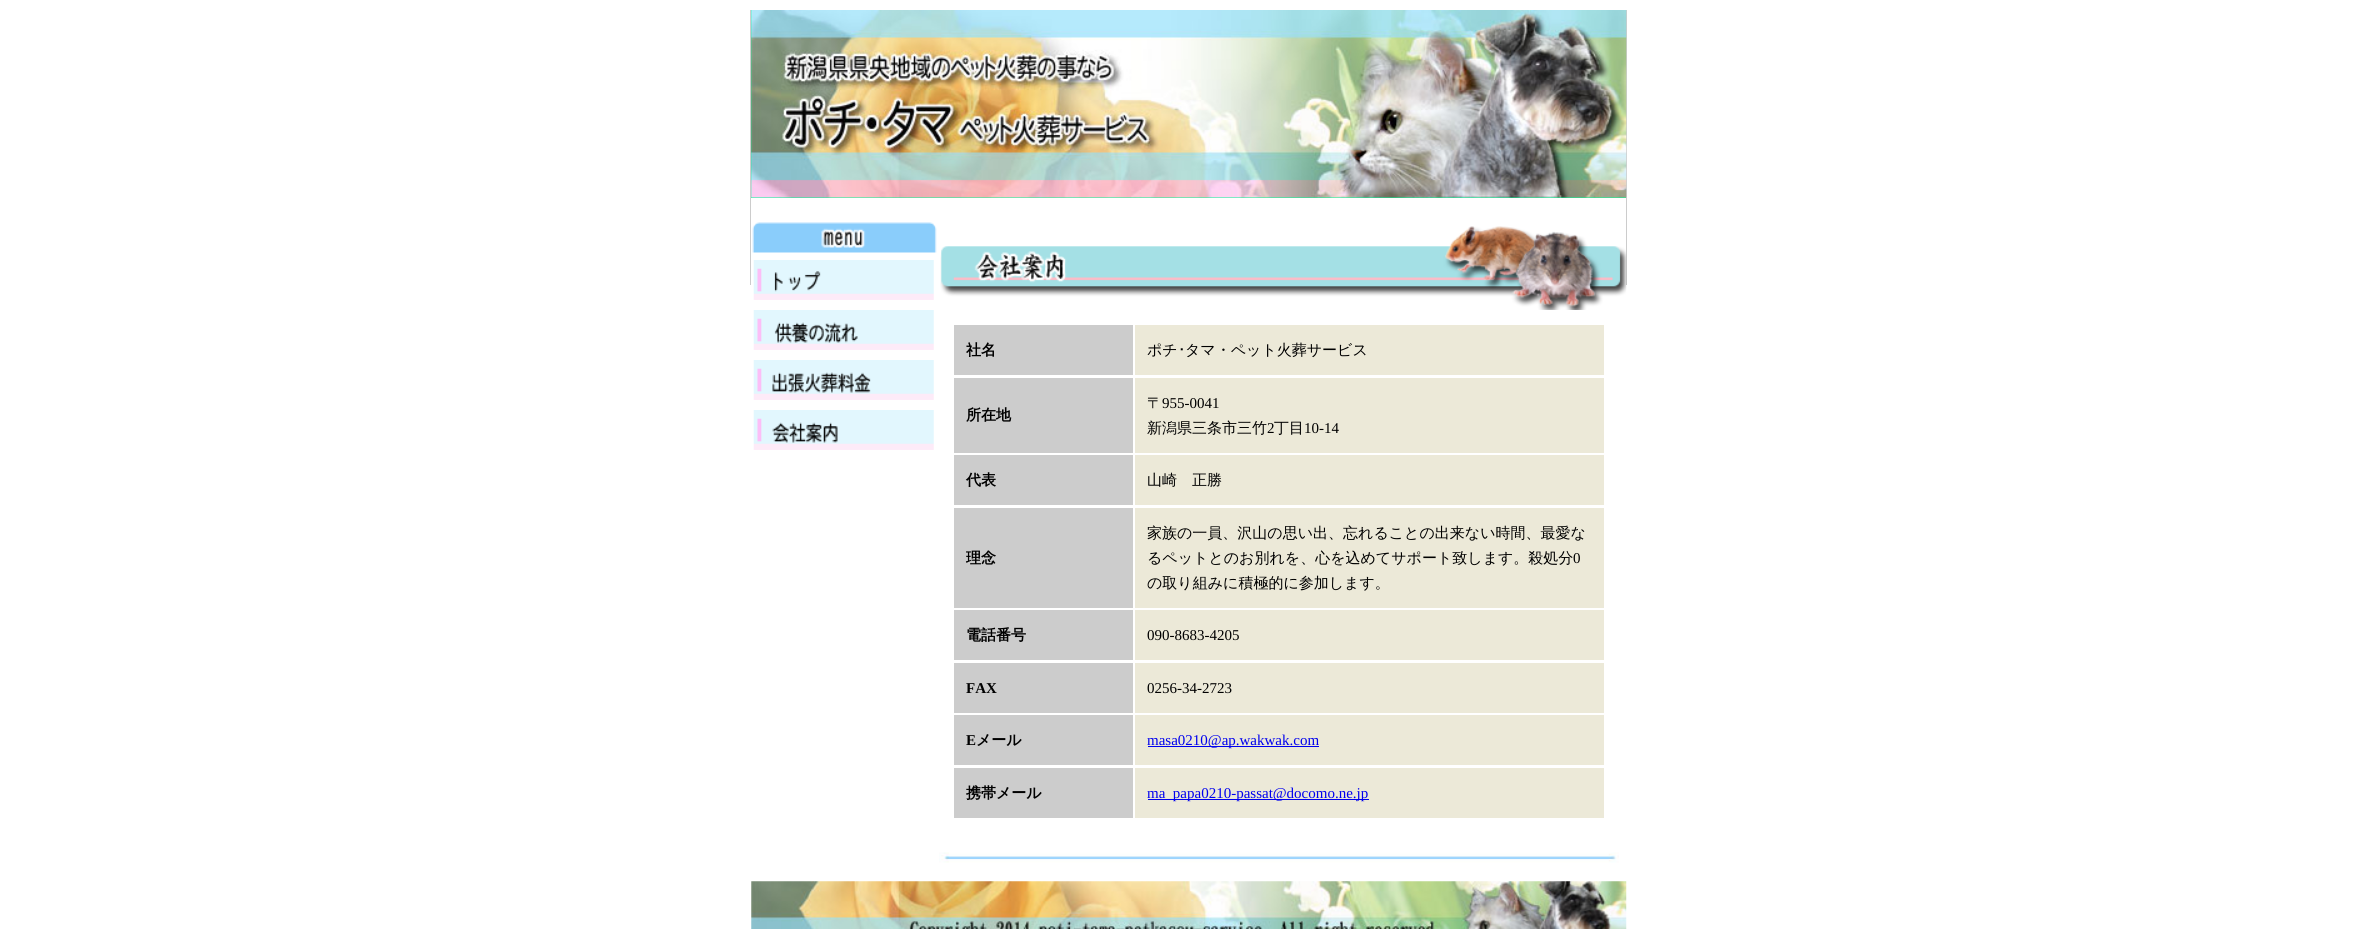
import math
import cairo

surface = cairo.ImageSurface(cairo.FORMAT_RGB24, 2376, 929)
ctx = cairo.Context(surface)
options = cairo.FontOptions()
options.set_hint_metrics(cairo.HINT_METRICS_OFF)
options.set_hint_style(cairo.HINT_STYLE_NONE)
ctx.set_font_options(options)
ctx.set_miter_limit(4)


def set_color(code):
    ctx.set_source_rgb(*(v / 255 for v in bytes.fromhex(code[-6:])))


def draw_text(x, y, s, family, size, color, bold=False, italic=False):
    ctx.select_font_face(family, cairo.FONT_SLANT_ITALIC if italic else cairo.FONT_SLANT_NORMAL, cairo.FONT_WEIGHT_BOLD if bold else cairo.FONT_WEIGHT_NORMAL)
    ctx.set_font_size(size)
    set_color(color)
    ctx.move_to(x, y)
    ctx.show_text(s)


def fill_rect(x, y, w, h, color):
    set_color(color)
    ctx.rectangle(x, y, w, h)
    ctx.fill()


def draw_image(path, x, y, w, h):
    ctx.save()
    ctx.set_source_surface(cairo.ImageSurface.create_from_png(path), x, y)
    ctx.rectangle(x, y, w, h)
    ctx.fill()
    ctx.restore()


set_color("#ffffff")
ctx.paint()
fill_rect(1626, 10, 1, 275, "#cccccc")
fill_rect(750, 10, 1, 275, "#cccccc")
fill_rect(751, 10, 875, 188, "#00ff99")
draw_image("assets/img1.png", 751, 10, 876, 188)
draw_image("assets/img2.png", 752, 222, 185, 31)
draw_image("assets/img3.png", 753, 260, 181, 40)
draw_image("assets/img4.png", 753, 310, 181, 40)
draw_image("assets/img5.png", 753, 360, 181, 40)
draw_image("assets/img6.png", 753, 410, 181, 40)
draw_image("assets/img7.png", 940, 226, 687, 84)
fill_rect(954, 325, 179, 50, "#cccccc")
draw_text(966, 355, "社名", "WenQuanYi Zen Hei", 15, "#000000", bold=True)
fill_rect(1135, 325, 469, 50, "#ece9d8")
draw_text(1147, 355, "ポチ", "WenQuanYi Zen Hei Medium", 15, "#000000")
draw_text(1178, 355, "･", "IPAGothic", 15, "#000000")
draw_text(1185, 355, "タマ・ペット火葬サービス", "WenQuanYi Zen Hei Medium", 15, "#000000")
fill_rect(954, 378, 179, 75, "#cccccc")
draw_text(966, 420, "所在地", "WenQuanYi Zen Hei", 15, "#000000", bold=True)
fill_rect(1135, 378, 469, 75, "#ece9d8")
draw_text(1147, 408, "〒", "WenQuanYi Zen Hei Medium", 15, "#000000")
draw_text(1162, 408, "955-0041", "Liberation Serif", 15, "#000000")
draw_text(1147, 433, "新潟県三条市三竹", "WenQuanYi Zen Hei Medium", 15, "#000000")
draw_text(1267, 433, "2", "Liberation Serif", 15, "#000000")
draw_text(1274, 433, "丁目", "WenQuanYi Zen Hei Medium", 15, "#000000")
draw_text(1304, 433, "10-14", "Liberation Serif", 15, "#000000")
fill_rect(954, 455, 179, 50, "#cccccc")
draw_text(966, 485, "代表", "WenQuanYi Zen Hei", 15, "#000000", bold=True)
fill_rect(1135, 455, 469, 50, "#ece9d8")
draw_text(1147, 485, "山崎　正勝", "WenQuanYi Zen Hei Medium", 15, "#000000")
fill_rect(954, 508, 179, 100, "#cccccc")
draw_text(966, 563, "理念", "WenQuanYi Zen Hei", 15, "#000000", bold=True)
fill_rect(1135, 508, 469, 100, "#ece9d8")
draw_text(1147, 538, "家族の一員、沢山の思い出、忘れることの出来ない時間、最愛な", "WenQuanYi Zen Hei Medium", 15, "#000000")
draw_text(1147, 563, "るペットとのお別れを、心を込めてサポート致します。殺処分", "WenQuanYi Zen Hei Medium", 15, "#000000")
draw_text(1573, 563, "0", "Liberation Serif", 15, "#000000")
draw_text(1147, 588, "の取り組みに積極的に参加します。", "WenQuanYi Zen Hei Medium", 15, "#000000")
fill_rect(954, 610, 179, 50, "#cccccc")
draw_text(966, 640, "電話番号", "WenQuanYi Zen Hei", 15, "#000000", bold=True)
fill_rect(1135, 610, 469, 50, "#ece9d8")
draw_text(1147, 640, "090-8683-4205", "Liberation Serif", 15, "#000000")
fill_rect(954, 663, 179, 50, "#cccccc")
draw_text(966, 693, "FAX", "Liberation Serif", 15, "#000000", bold=True)
fill_rect(1135, 663, 469, 50, "#ece9d8")
draw_text(1147, 693, "0256-34-2723", "Liberation Serif", 15, "#000000")
fill_rect(954, 715, 179, 50, "#cccccc")
draw_text(966, 745, "E", "Liberation Serif", 15, "#000000", bold=True)
draw_text(976, 745, "メール", "WenQuanYi Zen Hei", 15, "#000000", bold=True)
fill_rect(1135, 715, 469, 50, "#ece9d8")
fill_rect(1148, 746, 171, 1, "#0000ee")
draw_text(1147, 745, "masa0210@ap.wakwak.com", "Liberation Serif", 15, "#0000ee")
fill_rect(954, 768, 179, 50, "#cccccc")
draw_text(966, 798, "携帯メール", "WenQuanYi Zen Hei", 15, "#000000", bold=True)
fill_rect(1135, 768, 469, 50, "#ece9d8")
fill_rect(1148, 799, 221, 1, "#0000ee")
draw_text(1147, 798, "ma_papa0210-passat@docomo.ne.jp", "Liberation Serif", 15, "#0000ee")
draw_image("assets/img8.png", 939, 852, 680, 11)
draw_image("assets/img9.png", 751, 881, 876, 48)
surface.write_to_png("output.png")
